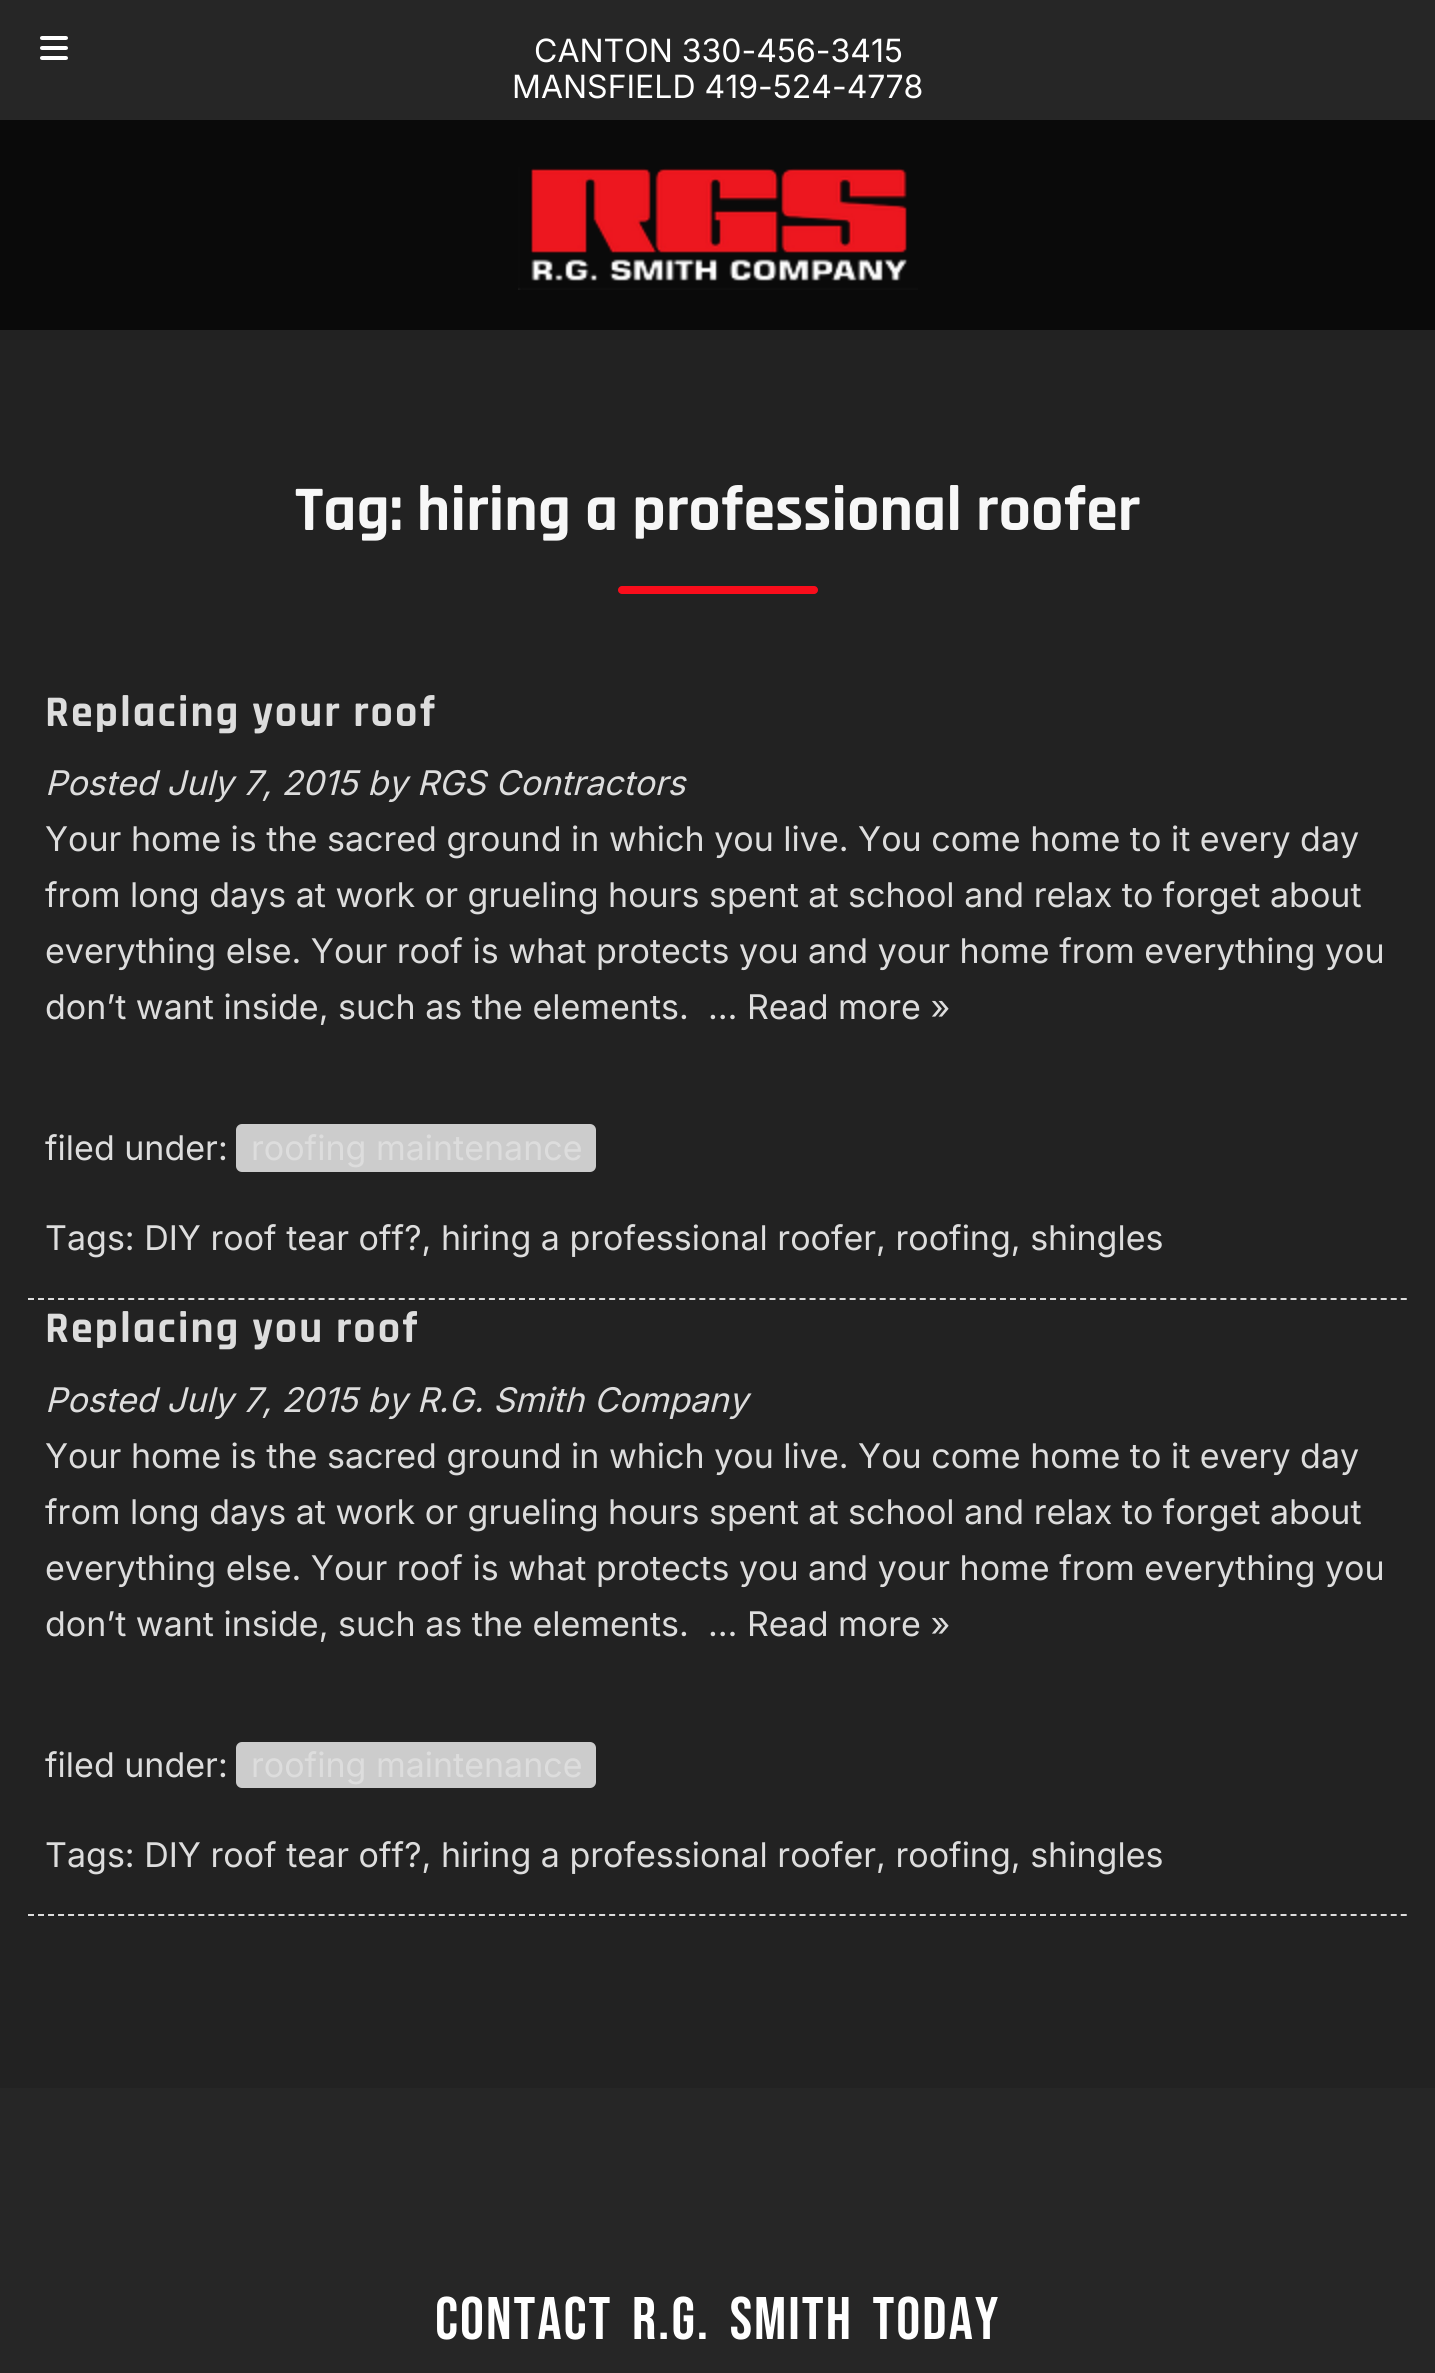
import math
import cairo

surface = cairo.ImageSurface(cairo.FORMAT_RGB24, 1435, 2373)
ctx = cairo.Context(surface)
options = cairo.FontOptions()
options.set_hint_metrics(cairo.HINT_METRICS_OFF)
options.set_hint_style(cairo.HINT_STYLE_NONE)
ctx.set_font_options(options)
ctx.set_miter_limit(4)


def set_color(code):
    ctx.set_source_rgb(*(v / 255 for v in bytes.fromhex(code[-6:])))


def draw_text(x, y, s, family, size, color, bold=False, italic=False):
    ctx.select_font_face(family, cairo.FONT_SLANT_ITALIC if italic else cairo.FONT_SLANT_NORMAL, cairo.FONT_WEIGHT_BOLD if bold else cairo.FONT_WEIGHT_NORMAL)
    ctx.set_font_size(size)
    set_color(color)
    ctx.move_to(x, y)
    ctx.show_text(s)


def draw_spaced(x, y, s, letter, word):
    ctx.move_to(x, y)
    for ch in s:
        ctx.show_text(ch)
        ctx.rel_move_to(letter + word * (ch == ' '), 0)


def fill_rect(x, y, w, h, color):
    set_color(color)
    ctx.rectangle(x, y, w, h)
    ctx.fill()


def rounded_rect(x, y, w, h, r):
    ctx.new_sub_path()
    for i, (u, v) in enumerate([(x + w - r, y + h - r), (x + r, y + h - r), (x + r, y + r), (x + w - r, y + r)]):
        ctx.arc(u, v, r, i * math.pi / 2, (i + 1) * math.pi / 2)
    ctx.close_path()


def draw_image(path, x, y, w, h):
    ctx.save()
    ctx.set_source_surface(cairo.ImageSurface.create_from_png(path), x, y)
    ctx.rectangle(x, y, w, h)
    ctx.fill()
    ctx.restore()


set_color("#0a0a0a")
ctx.paint()
fill_rect(0, 0, 1435, 120, "#262626")
draw_image("assets/img1.png", 40, 36, 28, 24)
draw_text(534, 62, "CANTON 330-456-3415", "Inter", 32, "#ffffff")
draw_text(512, 98, "MANSFIELD 419-524-4778", "Inter", 32, "#ffffff")
draw_image("assets/img2.png", 518, 167, 400, 123)
fill_rect(0, 330, 1435, 1758, "#222222")
draw_text(295, 530, "Tag: hiring a professional roofer", "Rajdhani", 64, "#f7f7f7", bold=True)
set_color("#f90d1b")
rounded_rect(618, 586, 200, 8, 4)
ctx.fill()
ctx.new_path()
ctx.move_to(28, 1299)
ctx.line_to(1408, 1299)
set_color("#dddddd")
ctx.set_dash([6, 4.02])
ctx.stroke()
ctx.set_font_size(44)
draw_spaced(45, 726, "Replacing your roof", 2, 0)
draw_text(45, 795, "Posted July 7, 2015 by RGS Contractors", "Inter", 34, "#dddddd", italic=True)
draw_text(45, 851, "Your home is the sacred ground in which you live. You come home to it every day", "Inter", 34, "#dddddd")
draw_text(45, 907, "from long days at work or grueling hours spent at school and relax to forget about", "Inter", 34, "#dddddd")
draw_text(45, 963, "everything else. Your roof is what protects you and your home from everything you", "Inter", 34, "#dddddd")
draw_text(45, 1019, "don’t want inside, such as the elements.  … Read more »", "Inter", 34, "#dddddd")
draw_text(45, 1160, "filed under:", "Inter", 34, "#dddddd")
set_color("#cccccc")
rounded_rect(236, 1124, 360, 48, 6)
ctx.fill()
draw_text(251, 1160, "roofing maintenance", "Inter", 34, "#dddddd")
draw_text(45, 1250, "Tags: DIY roof tear off?, hiring a professional roofer, roofing, shingles", "Inter", 34, "#dddddd")
ctx.new_path()
ctx.move_to(28, 1915)
ctx.line_to(1408, 1915)
ctx.stroke()
ctx.select_font_face("Rajdhani", cairo.FONT_SLANT_NORMAL, cairo.FONT_WEIGHT_BOLD)
ctx.set_font_size(44)
draw_spaced(45, 1342, "Replacing you roof", 2, 0)
draw_text(45, 1412, "Posted July 7, 2015 by R.G. Smith Company", "Inter", 34, "#dddddd", italic=True)
draw_text(45, 1468, "Your home is the sacred ground in which you live. You come home to it every day", "Inter", 34, "#dddddd")
draw_text(45, 1524, "from long days at work or grueling hours spent at school and relax to forget about", "Inter", 34, "#dddddd")
draw_text(45, 1580, "everything else. Your roof is what protects you and your home from everything you", "Inter", 34, "#dddddd")
draw_text(45, 1636, "don’t want inside, such as the elements.  … Read more »", "Inter", 34, "#dddddd")
draw_text(45, 1777, "filed under:", "Inter", 34, "#dddddd")
set_color("#cccccc")
rounded_rect(236, 1742, 360, 46, 6)
ctx.fill()
draw_text(251, 1777, "roofing maintenance", "Inter", 34, "#dddddd")
draw_text(45, 1867, "Tags: DIY roof tear off?, hiring a professional roofer, roofing, shingles", "Inter", 34, "#dddddd")
fill_rect(0, 2088, 1435, 285, "#262626")
ctx.select_font_face("Bebas Neue")
ctx.set_font_size(60)
set_color("#ffffff")
draw_spaced(435, 2339, "CONTACT R.G. SMITH TODAY", 2, 8)
surface.write_to_png("output.png")
